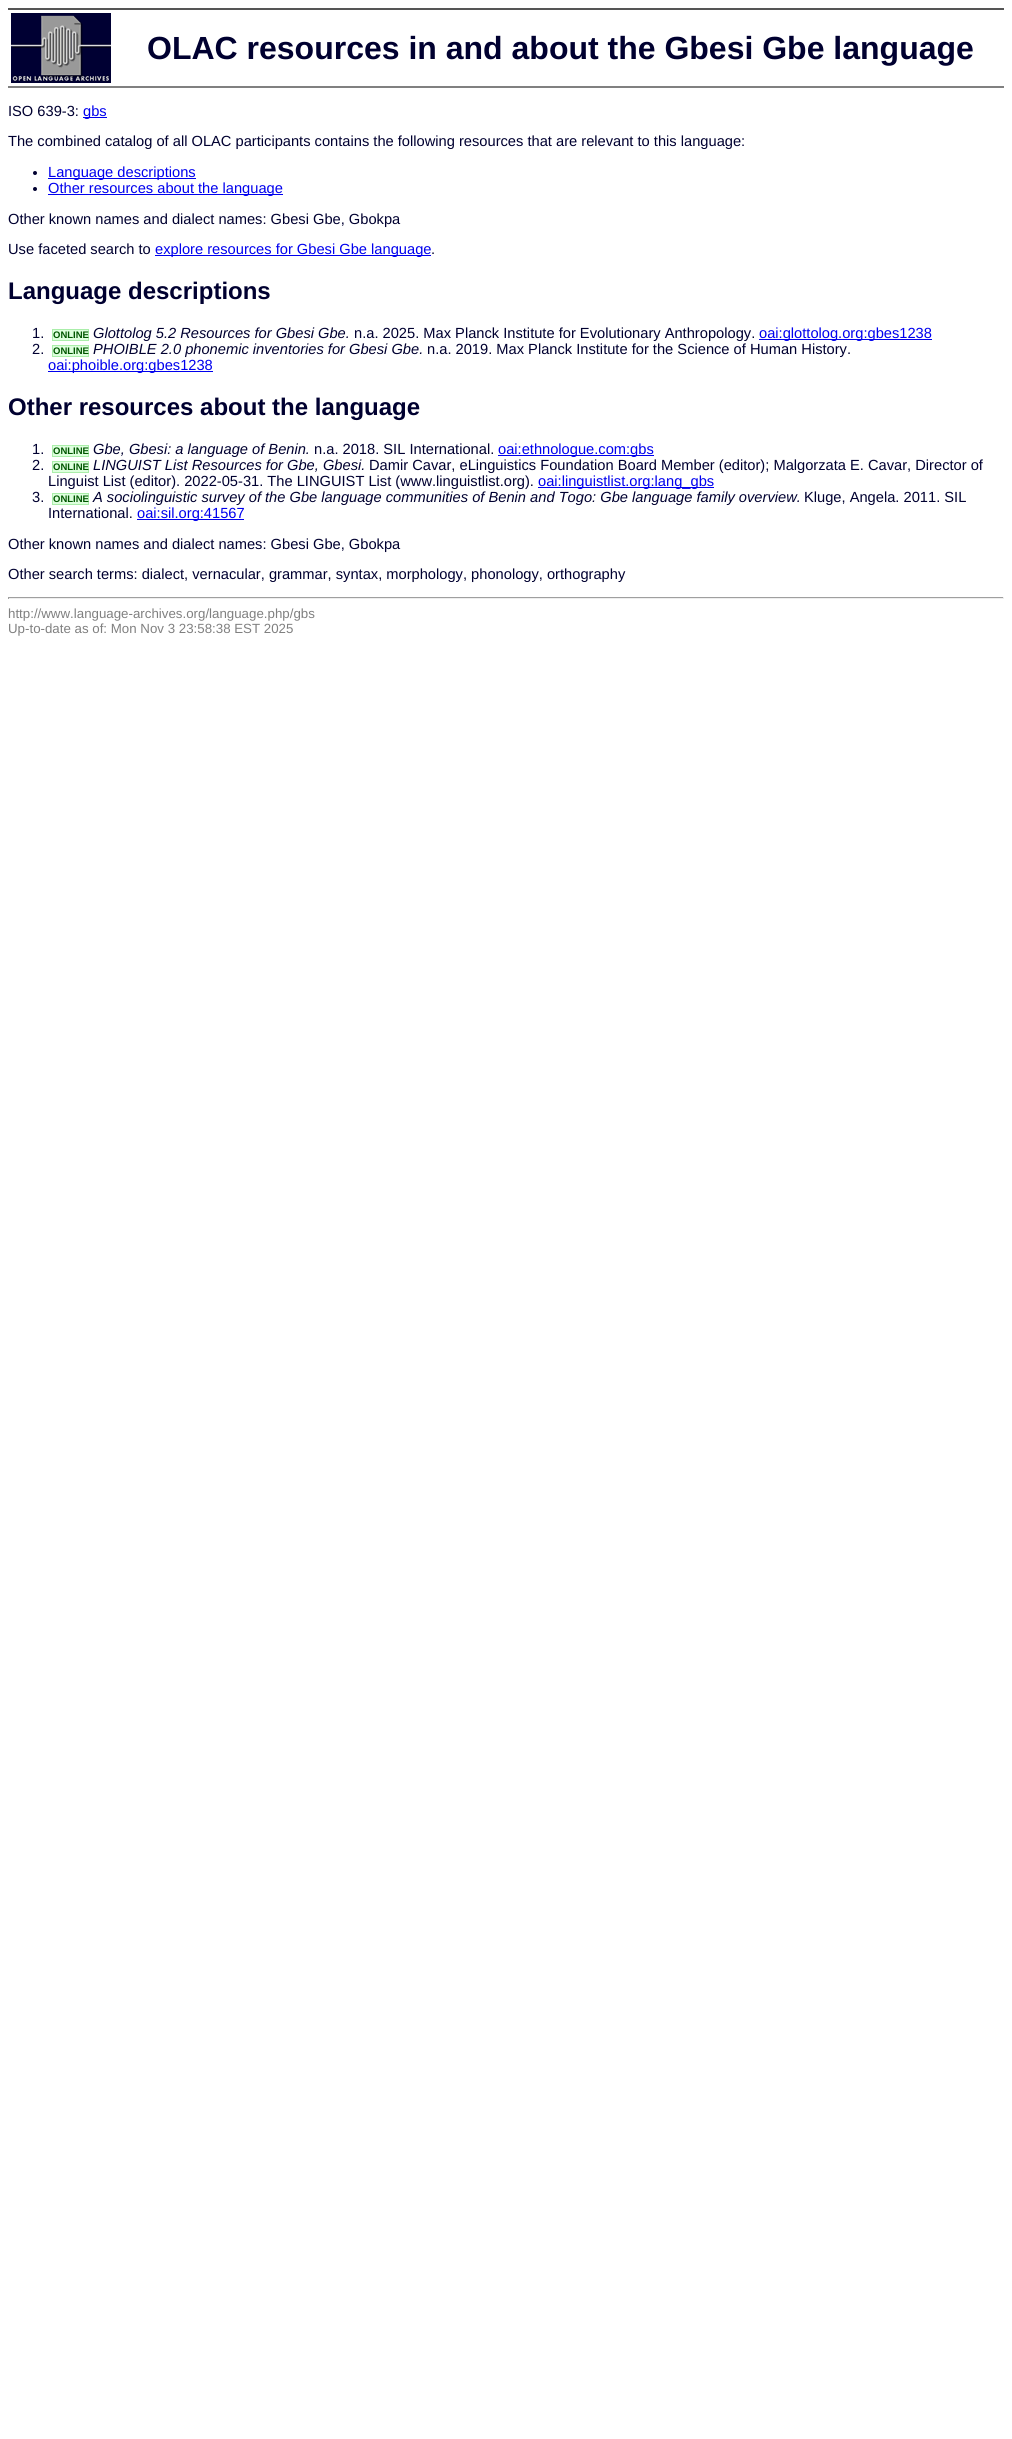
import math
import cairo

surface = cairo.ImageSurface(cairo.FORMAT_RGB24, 1012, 2439)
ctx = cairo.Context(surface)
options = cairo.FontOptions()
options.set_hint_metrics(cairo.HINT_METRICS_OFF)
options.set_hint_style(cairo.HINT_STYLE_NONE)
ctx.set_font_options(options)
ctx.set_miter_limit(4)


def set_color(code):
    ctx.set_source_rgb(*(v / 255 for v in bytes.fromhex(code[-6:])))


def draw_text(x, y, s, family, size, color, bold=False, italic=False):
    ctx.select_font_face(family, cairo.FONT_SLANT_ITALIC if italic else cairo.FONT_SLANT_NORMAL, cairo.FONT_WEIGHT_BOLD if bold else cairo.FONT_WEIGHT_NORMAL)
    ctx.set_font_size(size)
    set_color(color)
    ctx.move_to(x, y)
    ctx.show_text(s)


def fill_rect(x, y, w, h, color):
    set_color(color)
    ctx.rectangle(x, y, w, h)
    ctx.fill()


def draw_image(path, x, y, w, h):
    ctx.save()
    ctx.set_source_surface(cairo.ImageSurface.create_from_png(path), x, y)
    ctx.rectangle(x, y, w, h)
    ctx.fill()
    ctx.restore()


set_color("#ffffff")
ctx.paint()
fill_rect(8, 8, 996, 2, "#555555")
fill_rect(8, 86, 996, 2, "#808080")
draw_image("assets/img1.png", 11, 13, 100, 70)
draw_text(147, 59, "OLAC resources in and about the Gbesi Gbe language", "Liberation Sans", 32, "#000030", bold=True)
draw_text(8, 116, "ISO 639-3:", "Liberation Sans", 14.67, "#000030")
fill_rect(83, 117, 24, 1, "#0000ee")
draw_text(83, 116, "gbs", "Liberation Sans", 14.67, "#0000ee")
draw_text(8, 146, "The combined catalog of all OLAC participants contains the following resources that are relevant to this language:", "Liberation Sans", 14.67, "#000030")
ctx.new_path()
ctx.arc(35, 173, 2, 0, 2 * math.pi)
ctx.fill()
fill_rect(48, 178, 148, 1, "#0000ee")
draw_text(48, 177, "Language descriptions", "Liberation Sans", 14.67, "#0000ee")
set_color("#000030")
ctx.new_path()
ctx.arc(35, 189, 2, 0, 2 * math.pi)
ctx.fill()
fill_rect(48, 194, 235, 1, "#0000ee")
draw_text(48, 193, "Other resources about the language", "Liberation Sans", 14.67, "#0000ee")
draw_text(8, 224, "Other known names and dialect names: Gbesi Gbe, Gbokpa", "Liberation Sans", 14.67, "#000030")
draw_text(8, 254, "Use faceted search to", "Liberation Sans", 14.67, "#000030")
fill_rect(155, 255, 276, 1, "#0000ee")
draw_text(155, 254, "explore resources for Gbesi Gbe language", "Liberation Sans", 14.67, "#0000ee")
draw_text(431, 254, ".", "Liberation Sans", 14.67, "#000030")
draw_text(8, 299, "Language descriptions", "Liberation Sans", 24, "#000030", bold=True)
draw_text(32, 338, "1.", "Liberation Sans", 14.67, "#000030")
set_color("#ddffdd")
ctx.rectangle(52.5, 329.5, 36, 11)
ctx.fill_preserve()
set_color("#aaeeaa")
ctx.set_line_width(1)
ctx.stroke()
draw_text(53, 338, "ONLINE", "Liberation Sans", 9.5, "#005500", bold=True)
draw_text(93, 338, "Glottolog 5.2 Resources for Gbesi Gbe.", "Liberation Sans", 14.67, "#000030", italic=True)
draw_text(354, 338, "n.a. 2025. Max Planck Institute for Evolutionary Anthropology.", "Liberation Sans", 14.67, "#000030")
fill_rect(759, 339, 173, 1, "#0000ee")
draw_text(759, 338, "oai:glottolog.org:gbes1238", "Liberation Sans", 14.67, "#0000ee")
draw_text(32, 354, "2.", "Liberation Sans", 14.67, "#000030")
set_color("#ddffdd")
ctx.rectangle(52.5, 345.5, 36, 11)
ctx.fill_preserve()
set_color("#aaeeaa")
ctx.stroke()
draw_text(53, 354, "ONLINE", "Liberation Sans", 9.5, "#005500", bold=True)
draw_text(93, 354, "PHOIBLE 2.0 phonemic inventories for Gbesi Gbe.", "Liberation Sans", 14.67, "#000030", italic=True)
draw_text(427, 354, "n.a. 2019. Max Planck Institute for the Science of Human History.", "Liberation Sans", 14.67, "#000030")
fill_rect(48, 371, 165, 1, "#0000ee")
draw_text(48, 370, "oai:phoible.org:gbes1238", "Liberation Sans", 14.67, "#0000ee")
draw_text(8, 415, "Other resources about the language", "Liberation Sans", 24, "#000030", bold=True)
draw_text(32, 454, "1.", "Liberation Sans", 14.67, "#000030")
set_color("#ddffdd")
ctx.rectangle(52.5, 445.5, 36, 11)
ctx.fill_preserve()
set_color("#aaeeaa")
ctx.stroke()
draw_text(53, 454, "ONLINE", "Liberation Sans", 9.5, "#005500", bold=True)
draw_text(93, 454, "Gbe, Gbesi: a language of Benin.", "Liberation Sans", 14.67, "#000030", italic=True)
draw_text(314, 454, "n.a. 2018. SIL International.", "Liberation Sans", 14.67, "#000030")
fill_rect(498, 455, 156, 1, "#0000ee")
draw_text(498, 454, "oai:ethnologue.com:gbs", "Liberation Sans", 14.67, "#0000ee")
draw_text(32, 470, "2.", "Liberation Sans", 14.67, "#000030")
set_color("#ddffdd")
ctx.rectangle(52.5, 461.5, 36, 11)
ctx.fill_preserve()
set_color("#aaeeaa")
ctx.stroke()
draw_text(53, 470, "ONLINE", "Liberation Sans", 9.5, "#005500", bold=True)
draw_text(93, 470, "LINGUIST List Resources for Gbe, Gbesi.", "Liberation Sans", 14.67, "#000030", italic=True)
draw_text(369, 470, "Damir Cavar, eLinguistics Foundation Board Member (editor); Malgorzata E. Cavar, Director of", "Liberation Sans", 14.67, "#000030")
draw_text(48, 486, "Linguist List (editor). 2022-05-31. The LINGUIST List (www.linguistlist.org).", "Liberation Sans", 14.67, "#000030")
fill_rect(538, 487, 176, 1, "#0000ee")
draw_text(538, 486, "oai:linguistlist.org:lang_gbs", "Liberation Sans", 14.67, "#0000ee")
draw_text(32, 502, "3.", "Liberation Sans", 14.67, "#000030")
set_color("#ddffdd")
ctx.rectangle(52.5, 493.5, 36, 11)
ctx.fill_preserve()
set_color("#aaeeaa")
ctx.stroke()
draw_text(53, 502, "ONLINE", "Liberation Sans", 9.5, "#005500", bold=True)
draw_text(93, 502, "A sociolinguistic survey of the Gbe language communities of Benin and Togo: Gbe language family overview.", "Liberation Sans", 14.67, "#000030", italic=True)
draw_text(804, 502, "Kluge, Angela. 2011. SIL", "Liberation Sans", 14.67, "#000030")
draw_text(48, 518, "International.", "Liberation Sans", 14.67, "#000030")
fill_rect(137, 519, 107, 1, "#0000ee")
draw_text(137, 518, "oai:sil.org:41567", "Liberation Sans", 14.67, "#0000ee")
draw_text(8, 549, "Other known names and dialect names: Gbesi Gbe, Gbokpa", "Liberation Sans", 14.67, "#000030")
draw_text(8, 579, "Other search terms: dialect, vernacular, grammar, syntax, morphology, phonology, orthography", "Liberation Sans", 14.67, "#000030")
fill_rect(8, 597, 996, 1, "#9f9f9f")
fill_rect(1003, 597, 1, 2, "#eeeeee")
fill_rect(8, 598, 996, 1, "#eeeeee")
fill_rect(8, 597, 1, 2, "#9f9f9f")
draw_text(8, 618, "http://www.language-archives.org/language.php/gbs", "Liberation Sans", 13.3, "#808080")
draw_text(8, 633, "Up-to-date as of: Mon Nov 3 23:58:38 EST 2025", "Liberation Sans", 13.3, "#808080")
surface.write_to_png("output.png")
